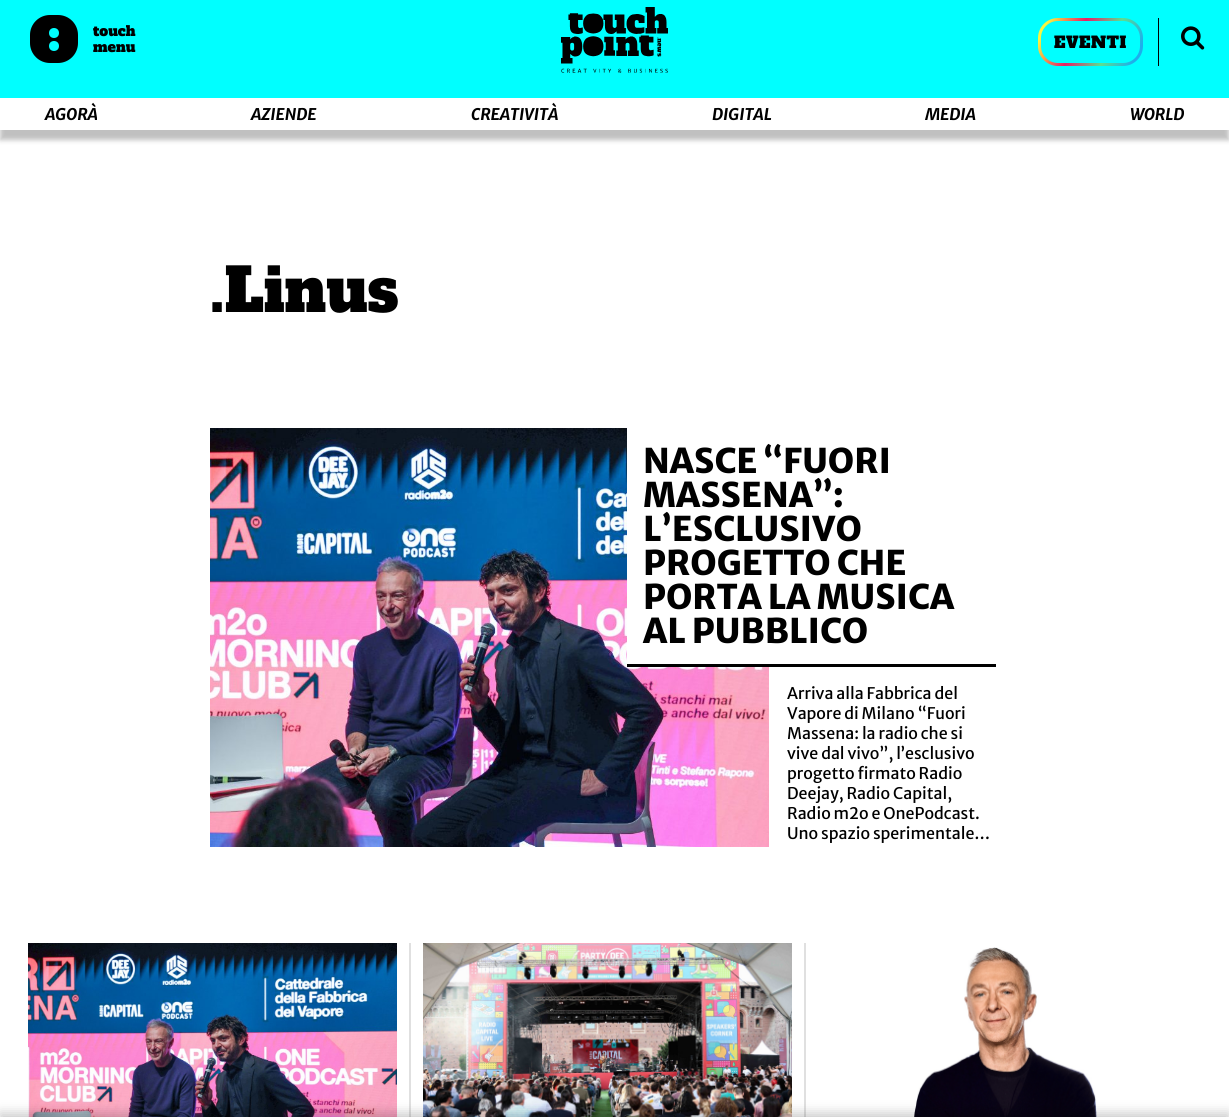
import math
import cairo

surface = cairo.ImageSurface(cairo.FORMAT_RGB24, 1229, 1117)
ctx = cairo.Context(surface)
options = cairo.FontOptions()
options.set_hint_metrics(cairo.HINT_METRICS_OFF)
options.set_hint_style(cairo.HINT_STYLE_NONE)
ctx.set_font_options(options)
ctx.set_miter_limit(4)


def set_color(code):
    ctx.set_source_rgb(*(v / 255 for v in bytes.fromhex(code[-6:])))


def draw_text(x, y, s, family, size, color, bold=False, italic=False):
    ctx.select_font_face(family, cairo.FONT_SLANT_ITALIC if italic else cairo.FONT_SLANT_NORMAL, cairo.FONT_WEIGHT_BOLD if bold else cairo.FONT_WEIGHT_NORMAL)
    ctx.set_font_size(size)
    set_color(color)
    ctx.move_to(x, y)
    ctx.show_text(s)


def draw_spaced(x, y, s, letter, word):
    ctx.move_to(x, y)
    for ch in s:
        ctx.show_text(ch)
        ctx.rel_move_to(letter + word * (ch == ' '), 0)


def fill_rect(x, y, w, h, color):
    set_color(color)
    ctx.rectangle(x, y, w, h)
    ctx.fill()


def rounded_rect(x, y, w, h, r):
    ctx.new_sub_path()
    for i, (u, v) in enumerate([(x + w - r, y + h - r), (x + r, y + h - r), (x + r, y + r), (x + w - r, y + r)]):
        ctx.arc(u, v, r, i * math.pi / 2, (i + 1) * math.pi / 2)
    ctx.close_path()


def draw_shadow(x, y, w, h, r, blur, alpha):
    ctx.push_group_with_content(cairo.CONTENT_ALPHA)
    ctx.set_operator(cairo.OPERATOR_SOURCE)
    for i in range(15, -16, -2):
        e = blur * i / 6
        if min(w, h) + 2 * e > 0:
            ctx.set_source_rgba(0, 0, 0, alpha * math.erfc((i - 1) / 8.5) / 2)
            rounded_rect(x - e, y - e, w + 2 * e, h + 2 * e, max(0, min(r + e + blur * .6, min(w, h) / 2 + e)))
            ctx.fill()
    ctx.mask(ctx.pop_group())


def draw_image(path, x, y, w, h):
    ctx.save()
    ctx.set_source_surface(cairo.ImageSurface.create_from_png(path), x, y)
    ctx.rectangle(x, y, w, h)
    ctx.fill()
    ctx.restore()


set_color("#ffffff")
ctx.paint()
set_color("#000000")
draw_shadow(0, 10, 1229, 130, 0, 2.5, 0.25)
fill_rect(0, 0, 1229, 98, "#00ffff")
draw_image("assets/img1.png", 561, 7, 107, 66)
set_color("#000000")
rounded_rect(30, 15, 48, 48, 20)
ctx.fill()
set_color("#00ffff")
ctx.arc(54, 33, 5, 0, 2 * math.pi)
ctx.fill()
ctx.arc(54, 46, 5, 0, 2 * math.pi)
ctx.fill()
draw_text(93, 36, "touch", "Alfa Slab One", 14, "#000000")
draw_text(93, 52, "menu", "Alfa Slab One", 14, "#000000")
fill_rect(1158, 18, 1, 48, "#000000")
rounded_rect(1039.5, 19.5, 102, 45, 18.5)
gradient = cairo.LinearGradient(1040, 37, 1126, 78)
gradient.add_color_stop_rgba(0, 0.98, 0.961, 0.247, 1)
gradient.add_color_stop_rgba(0.29, 0.922, 0.263, 0.369, 1)
gradient.add_color_stop_rgba(0.36, 0.91, 0.118, 0.396, 1)
gradient.add_color_stop_rgba(0.7, 0.365, 0.867, 0.565, 1)
gradient.add_color_stop_rgba(1, 0.114, 0.682, 0.925, 1)
ctx.set_source(gradient)
ctx.set_line_width(3)
ctx.stroke()
ctx.set_font_size(16)
set_color("#000000")
draw_spaced(1054, 48, "EVENTI", 0.5, 0)
draw_image("assets/img2.png", 1181, 26, 24, 24)
fill_rect(0, 98, 1229, 32, "#ffffff")
draw_text(45, 120, "AGORÀ", "Merriweather Sans", 16, "#000000", bold=True, italic=True)
draw_text(251, 120, "AZIENDE", "Merriweather Sans", 16, "#000000", bold=True, italic=True)
draw_text(471, 120, "CREATIVITÀ", "Merriweather Sans", 16, "#000000", bold=True, italic=True)
draw_text(712, 120, "DIGITAL", "Merriweather Sans", 16, "#000000", bold=True, italic=True)
draw_text(925, 120, "MEDIA", "Merriweather Sans", 16, "#000000", bold=True, italic=True)
draw_text(1130, 120, "WORLD", "Merriweather Sans", 16, "#000000", bold=True, italic=True)
draw_text(210, 312, ".Linus", "Alfa Slab One", 60, "#000000")
draw_image("assets/img3.png", 210, 428, 559, 419)
fill_rect(627, 428, 142, 236, "#ffffff")
fill_rect(627, 664, 369, 3, "#000000")
draw_text(643, 473, "NASCE “FUORI", "Merriweather Sans ExtraBold", 34, "#000000")
draw_text(643, 507, "MASSENA”:", "Merriweather Sans ExtraBold", 34, "#000000")
draw_text(643, 541, "L’ESCLUSIVO", "Merriweather Sans ExtraBold", 34, "#000000")
draw_text(643, 575, "PROGETTO CHE", "Merriweather Sans ExtraBold", 34, "#000000")
draw_text(643, 609, "PORTA LA MUSICA", "Merriweather Sans ExtraBold", 34, "#000000")
draw_text(643, 643, "AL PUBBLICO", "Merriweather Sans ExtraBold", 34, "#000000")
draw_text(787, 699, "Arriva alla Fabbrica del", "Merriweather Sans", 16, "#000000")
draw_text(787, 719, "Vapore di Milano “Fuori", "Merriweather Sans", 16, "#000000")
draw_text(787, 739, "Massena: la radio che si", "Merriweather Sans", 16, "#000000")
draw_text(787, 759, "vive dal vivo”, l’esclusivo", "Merriweather Sans", 16, "#000000")
draw_text(787, 779, "progetto firmato Radio", "Merriweather Sans", 16, "#000000")
draw_text(787, 799, "Deejay, Radio Capital,", "Merriweather Sans", 16, "#000000")
draw_text(787, 819, "Radio m2o e OnePodcast.", "Merriweather Sans", 16, "#000000")
draw_text(787, 839, "Uno spazio sperimentale…", "Merriweather Sans", 16, "#000000")
fill_rect(409, 943, 2, 174, "#e0e0e0")
draw_image("assets/img4.png", 28, 943, 369, 174)
fill_rect(804, 943, 2, 174, "#e0e0e0")
draw_image("assets/img5.png", 423, 943, 369, 174)
draw_image("assets/img6.png", 914, 947, 183, 170)
set_color("#000000")
draw_shadow(0, 1113, 1229, 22, 0, 6, 0.21)
surface.write_to_png("output.png")
